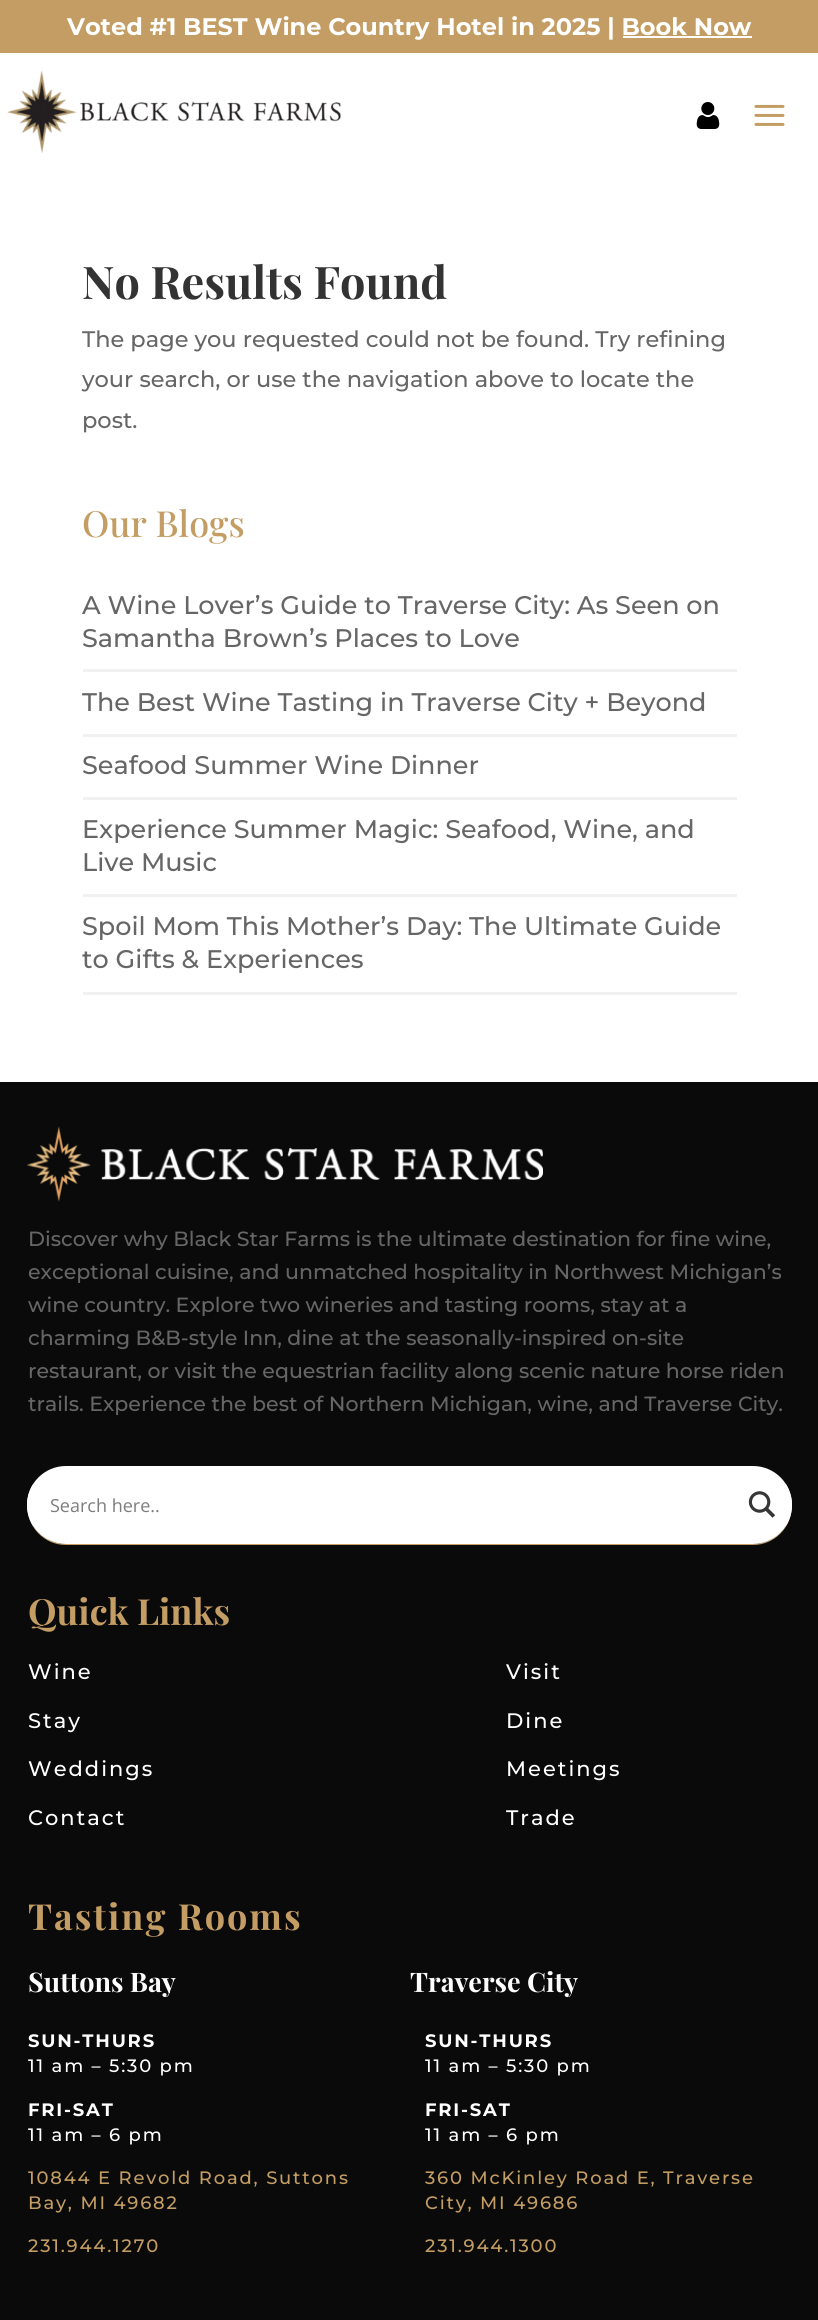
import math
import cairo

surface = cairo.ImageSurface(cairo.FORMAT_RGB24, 818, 2320)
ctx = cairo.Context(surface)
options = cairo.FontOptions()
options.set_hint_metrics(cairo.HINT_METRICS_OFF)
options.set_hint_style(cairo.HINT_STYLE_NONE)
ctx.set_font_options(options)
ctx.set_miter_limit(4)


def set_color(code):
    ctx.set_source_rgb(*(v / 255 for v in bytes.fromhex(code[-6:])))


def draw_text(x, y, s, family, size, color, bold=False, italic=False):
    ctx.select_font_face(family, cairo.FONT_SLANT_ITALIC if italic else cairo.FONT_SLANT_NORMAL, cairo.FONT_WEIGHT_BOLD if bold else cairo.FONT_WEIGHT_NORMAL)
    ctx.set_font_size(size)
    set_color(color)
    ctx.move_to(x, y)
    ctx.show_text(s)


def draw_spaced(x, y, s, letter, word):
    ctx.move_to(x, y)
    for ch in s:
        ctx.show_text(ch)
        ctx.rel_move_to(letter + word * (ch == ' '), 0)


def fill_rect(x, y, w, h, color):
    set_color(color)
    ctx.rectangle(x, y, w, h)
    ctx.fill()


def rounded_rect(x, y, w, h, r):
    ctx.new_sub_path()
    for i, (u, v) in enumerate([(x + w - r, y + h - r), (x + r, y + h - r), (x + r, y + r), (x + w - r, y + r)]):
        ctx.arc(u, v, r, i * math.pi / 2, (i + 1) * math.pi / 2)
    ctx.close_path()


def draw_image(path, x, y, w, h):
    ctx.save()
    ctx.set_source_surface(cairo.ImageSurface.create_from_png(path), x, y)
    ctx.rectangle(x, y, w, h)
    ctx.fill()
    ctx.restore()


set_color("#ffffff")
ctx.paint()
fill_rect(0, 0, 818, 53, "#c39d63")
draw_text(67, 35, "Voted #1 BEST Wine Country Hotel in 2025 | Book Now", "Montserrat", 24, "#ffffff", bold=True)
fill_rect(623, 36, 129, 2, "#ffffff")
draw_image("assets/img1.png", 7, 70, 334, 83)
draw_image("assets/img2.png", 696, 102, 24, 27)
draw_image("assets/img3.png", 754, 104, 31, 22)
draw_text(82, 299, "No Results Found", "Playfair Display", 45, "#333333", bold=True)
draw_text(82, 347, "The page you requested could not be found. Try refining", "Montserrat Medium", 22.5, "#666666")
draw_text(82, 387, "your search, or use the navigation above to locate the", "Montserrat Medium", 22.5, "#666666")
draw_text(82, 428, "post.", "Montserrat Medium", 22.5, "#666666")
draw_text(82, 537, "Our Blogs", "Playfair Display Medium", 36, "#c39d63")
fill_rect(83, 669, 654, 3, "#f1f1f1")
draw_text(82, 614, "A Wine Lover’s Guide to Traverse City: As Seen on", "Montserrat Medium", 25.5, "#666666")
draw_text(82, 647, "Samantha Brown’s Places to Love", "Montserrat Medium", 25.5, "#666666")
fill_rect(83, 734, 654, 3, "#f1f1f1")
draw_text(82, 711, "The Best Wine Tasting in Traverse City + Beyond", "Montserrat Medium", 25.5, "#666666")
fill_rect(83, 797, 654, 3, "#f1f1f1")
draw_text(82, 774, "Seafood Summer Wine Dinner", "Montserrat Medium", 25.5, "#666666")
fill_rect(83, 894, 654, 3, "#f1f1f1")
draw_text(82, 838, "Experience Summer Magic: Seafood, Wine, and", "Montserrat Medium", 25.5, "#666666")
draw_text(82, 871, "Live Music", "Montserrat Medium", 25.5, "#666666")
fill_rect(83, 992, 654, 3, "#f1f1f1")
draw_text(82, 935, "Spoil Mom This Mother’s Day: The Ultimate Guide", "Montserrat Medium", 25.5, "#666666")
draw_text(82, 968, "to Gifts & Experiences", "Montserrat Medium", 25.5, "#666666")
fill_rect(0, 1082, 818, 1238, "#0a0a0a")
draw_image("assets/img4.png", 27, 1126, 516, 76)
draw_text(28, 1246, "Discover why Black Star Farms is the ultimate destination for fine wine,", "Montserrat Medium", 20.55, "#666666")
draw_text(28, 1279, "exceptional cuisine, and unmatched hospitality in Northwest Michigan’s", "Montserrat Medium", 20.55, "#666666")
draw_text(28, 1312, "wine country. Explore two wineries and tasting rooms, stay at a", "Montserrat Medium", 20.55, "#666666")
draw_text(28, 1345, "charming B&B-style Inn, dine at the seasonally-inspired on-site", "Montserrat Medium", 20.55, "#666666")
draw_text(28, 1378, "restaurant, or visit the equestrian facility along scenic nature horse riden", "Montserrat Medium", 20.55, "#666666")
draw_text(28, 1411, "trails. Experience the best of Northern Michigan, wine, and Traverse City.", "Montserrat Medium", 20.55, "#666666")
set_color("#c39d63")
ctx.new_path()
ctx.move_to(27, 1505)
ctx.curve_to(27, 1527, 44, 1545, 66, 1545)
ctx.line_to(753, 1545)
ctx.curve_to(775, 1545, 792, 1527, 792, 1505)
ctx.curve_to(792, 1526, 774, 1544, 753, 1544)
ctx.line_to(66, 1544)
ctx.curve_to(45, 1544, 27, 1526, 27, 1505)
ctx.close_path()
ctx.fill()
set_color("#ffffff")
rounded_rect(27, 1466, 765, 78, 39)
ctx.fill()
ctx.save()
rounded_rect(27, 1466, 765, 78, 39)
ctx.clip()
fill_rect(27, 1484, 765, 42, "#ffffff")
ctx.restore()
draw_text(50, 1512, "Search here..", "Open Sans", 18, "#7d7d7d")
draw_image("assets/img5.png", 748, 1491, 28, 27)
draw_text(28, 1625, "Quick Links", "Playfair Display", 36, "#c39d63", bold=True)
ctx.select_font_face("Montserrat Medium")
ctx.set_font_size(21)
set_color("#ffffff")
draw_spaced(28, 1679, "Wine", 2, 0)
draw_spaced(506, 1679, "Visit", 2, 0)
draw_spaced(28, 1728, "Stay", 2, 0)
draw_spaced(506, 1728, "Dine", 2, 0)
draw_spaced(28, 1776, "Weddings", 2, 0)
draw_spaced(506, 1776, "Meetings", 2, 0)
draw_spaced(28, 1825, "Contact", 2, 0)
draw_spaced(506, 1825, "Trade", 2, 0)
ctx.select_font_face("Playfair Display", cairo.FONT_SLANT_NORMAL, cairo.FONT_WEIGHT_BOLD)
ctx.set_font_size(36)
set_color("#c39d63")
draw_spaced(28, 1930, "Tasting Rooms", 2, 0)
draw_text(28, 1992, "Suttons Bay", "Playfair Display", 27, "#ffffff", bold=True)
draw_text(410, 1992, "Traverse City", "Playfair Display", 27, "#ffffff", bold=True)
ctx.select_font_face("Montserrat", cairo.FONT_SLANT_NORMAL, cairo.FONT_WEIGHT_BOLD)
ctx.set_font_size(18)
draw_spaced(28, 2047, "SUN-THURS", 1.8, 0)
ctx.select_font_face("Montserrat Medium")
draw_spaced(28, 2072, "11 am – 5:30 pm", 1.8, 0)
ctx.select_font_face("Montserrat", cairo.FONT_SLANT_NORMAL, cairo.FONT_WEIGHT_BOLD)
draw_spaced(28, 2116, "FRI-SAT", 1.8, 0)
ctx.select_font_face("Montserrat Medium")
draw_spaced(28, 2141, "11 am – 6 pm", 1.8, 0)
set_color("#c39d63")
draw_spaced(28, 2184, "10844 E Revold Road, Suttons", 1.8, 0)
draw_spaced(28, 2209, "Bay, MI 49682", 1.8, 0)
draw_spaced(28, 2252, "231.944.1270", 1.8, 0)
ctx.select_font_face("Montserrat", cairo.FONT_SLANT_NORMAL, cairo.FONT_WEIGHT_BOLD)
set_color("#ffffff")
draw_spaced(425, 2047, "SUN-THURS", 1.8, 0)
ctx.select_font_face("Montserrat Medium")
draw_spaced(425, 2072, "11 am – 5:30 pm", 1.8, 0)
ctx.select_font_face("Montserrat", cairo.FONT_SLANT_NORMAL, cairo.FONT_WEIGHT_BOLD)
draw_spaced(425, 2116, "FRI-SAT", 1.8, 0)
ctx.select_font_face("Montserrat Medium")
draw_spaced(425, 2141, "11 am – 6 pm", 1.8, 0)
set_color("#c39d63")
draw_spaced(425, 2184, "360 McKinley Road E, Traverse", 1.8, 0)
draw_spaced(425, 2209, "City, MI 49686", 1.8, 0)
draw_spaced(425, 2252, "231.944.1300", 1.8, 0)
surface.write_to_png("output.png")
